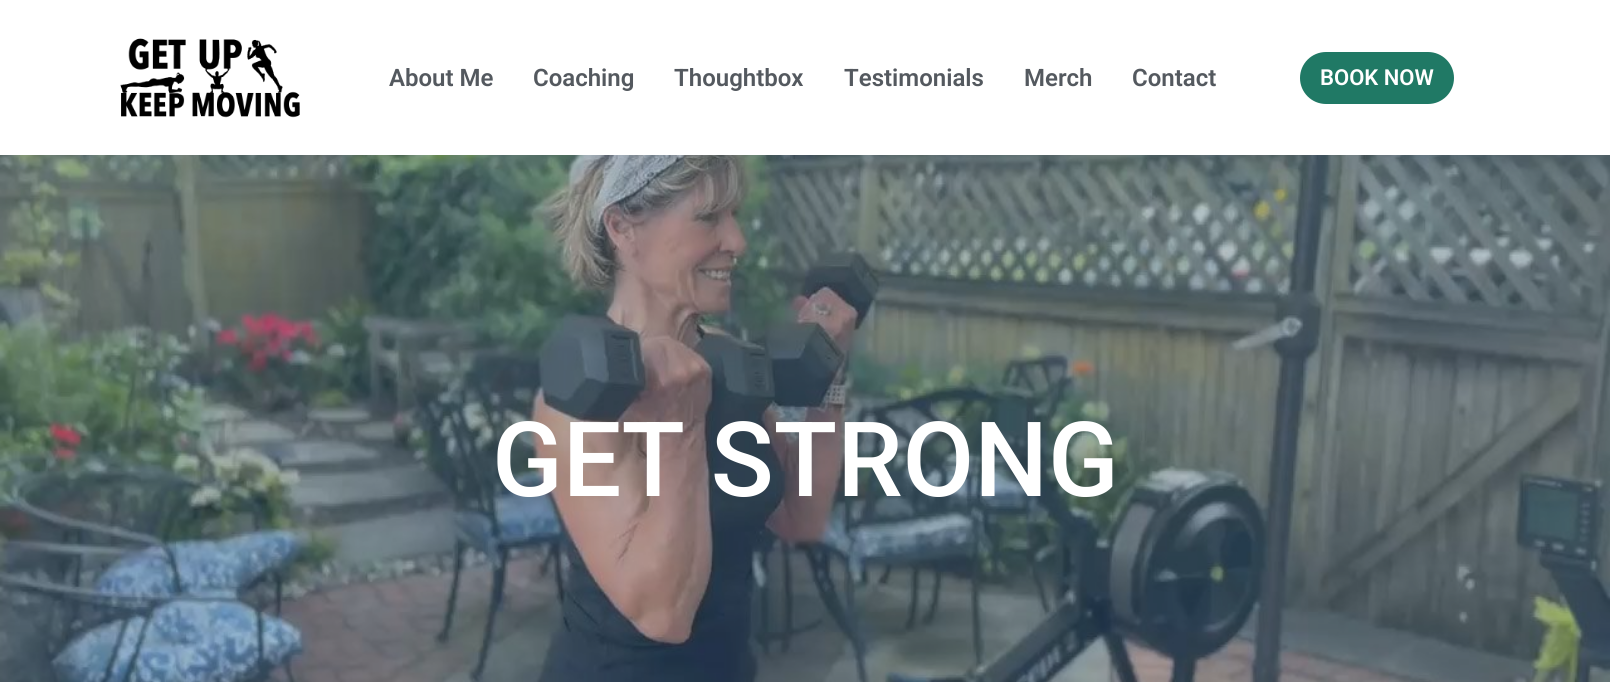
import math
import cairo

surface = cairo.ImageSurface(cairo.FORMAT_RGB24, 1610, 682)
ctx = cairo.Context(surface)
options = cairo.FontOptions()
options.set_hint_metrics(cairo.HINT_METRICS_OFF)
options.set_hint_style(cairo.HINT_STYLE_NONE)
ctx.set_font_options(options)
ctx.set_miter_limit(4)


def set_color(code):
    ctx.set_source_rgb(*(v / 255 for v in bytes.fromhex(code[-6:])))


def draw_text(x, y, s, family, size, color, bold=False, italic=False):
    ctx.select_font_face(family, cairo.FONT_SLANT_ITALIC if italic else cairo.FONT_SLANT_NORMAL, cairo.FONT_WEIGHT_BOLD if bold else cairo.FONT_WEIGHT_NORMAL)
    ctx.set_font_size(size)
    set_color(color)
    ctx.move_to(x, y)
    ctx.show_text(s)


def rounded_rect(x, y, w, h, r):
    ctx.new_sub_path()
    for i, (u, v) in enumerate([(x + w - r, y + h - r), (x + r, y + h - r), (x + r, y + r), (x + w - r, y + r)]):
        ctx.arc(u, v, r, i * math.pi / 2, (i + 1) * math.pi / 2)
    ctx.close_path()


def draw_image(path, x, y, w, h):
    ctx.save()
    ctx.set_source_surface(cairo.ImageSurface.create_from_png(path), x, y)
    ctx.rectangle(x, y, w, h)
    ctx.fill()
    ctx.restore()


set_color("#ffffff")
ctx.paint()
draw_image("assets/img1.png", 120, 38, 180, 80)
draw_text(389, 86, "About Me", "Roboto SemiBold", 24, "#54595f")
draw_text(533, 86, "Coaching", "Roboto SemiBold", 24, "#54595f")
draw_text(674, 86, "Thoughtbox", "Roboto SemiBold", 24, "#54595f")
draw_text(844, 86, "Testimonials", "Roboto SemiBold", 24, "#54595f")
draw_text(1024, 86, "Merch", "Roboto SemiBold", 24, "#54595f")
draw_text(1132, 86, "Contact", "Roboto SemiBold", 24, "#54595f")
set_color("#207965")
rounded_rect(1300, 52, 154, 52, 26)
ctx.fill()
draw_text(1320, 85, "BOOK NOW", "Roboto SemiBold", 22, "#ffffff")
draw_image("assets/img2.png", 0, 155, 1610, 527)
draw_text(492, 496, "GET STRONG", "Roboto Medium", 104, "#ffffff")
surface.write_to_png("output.png")
